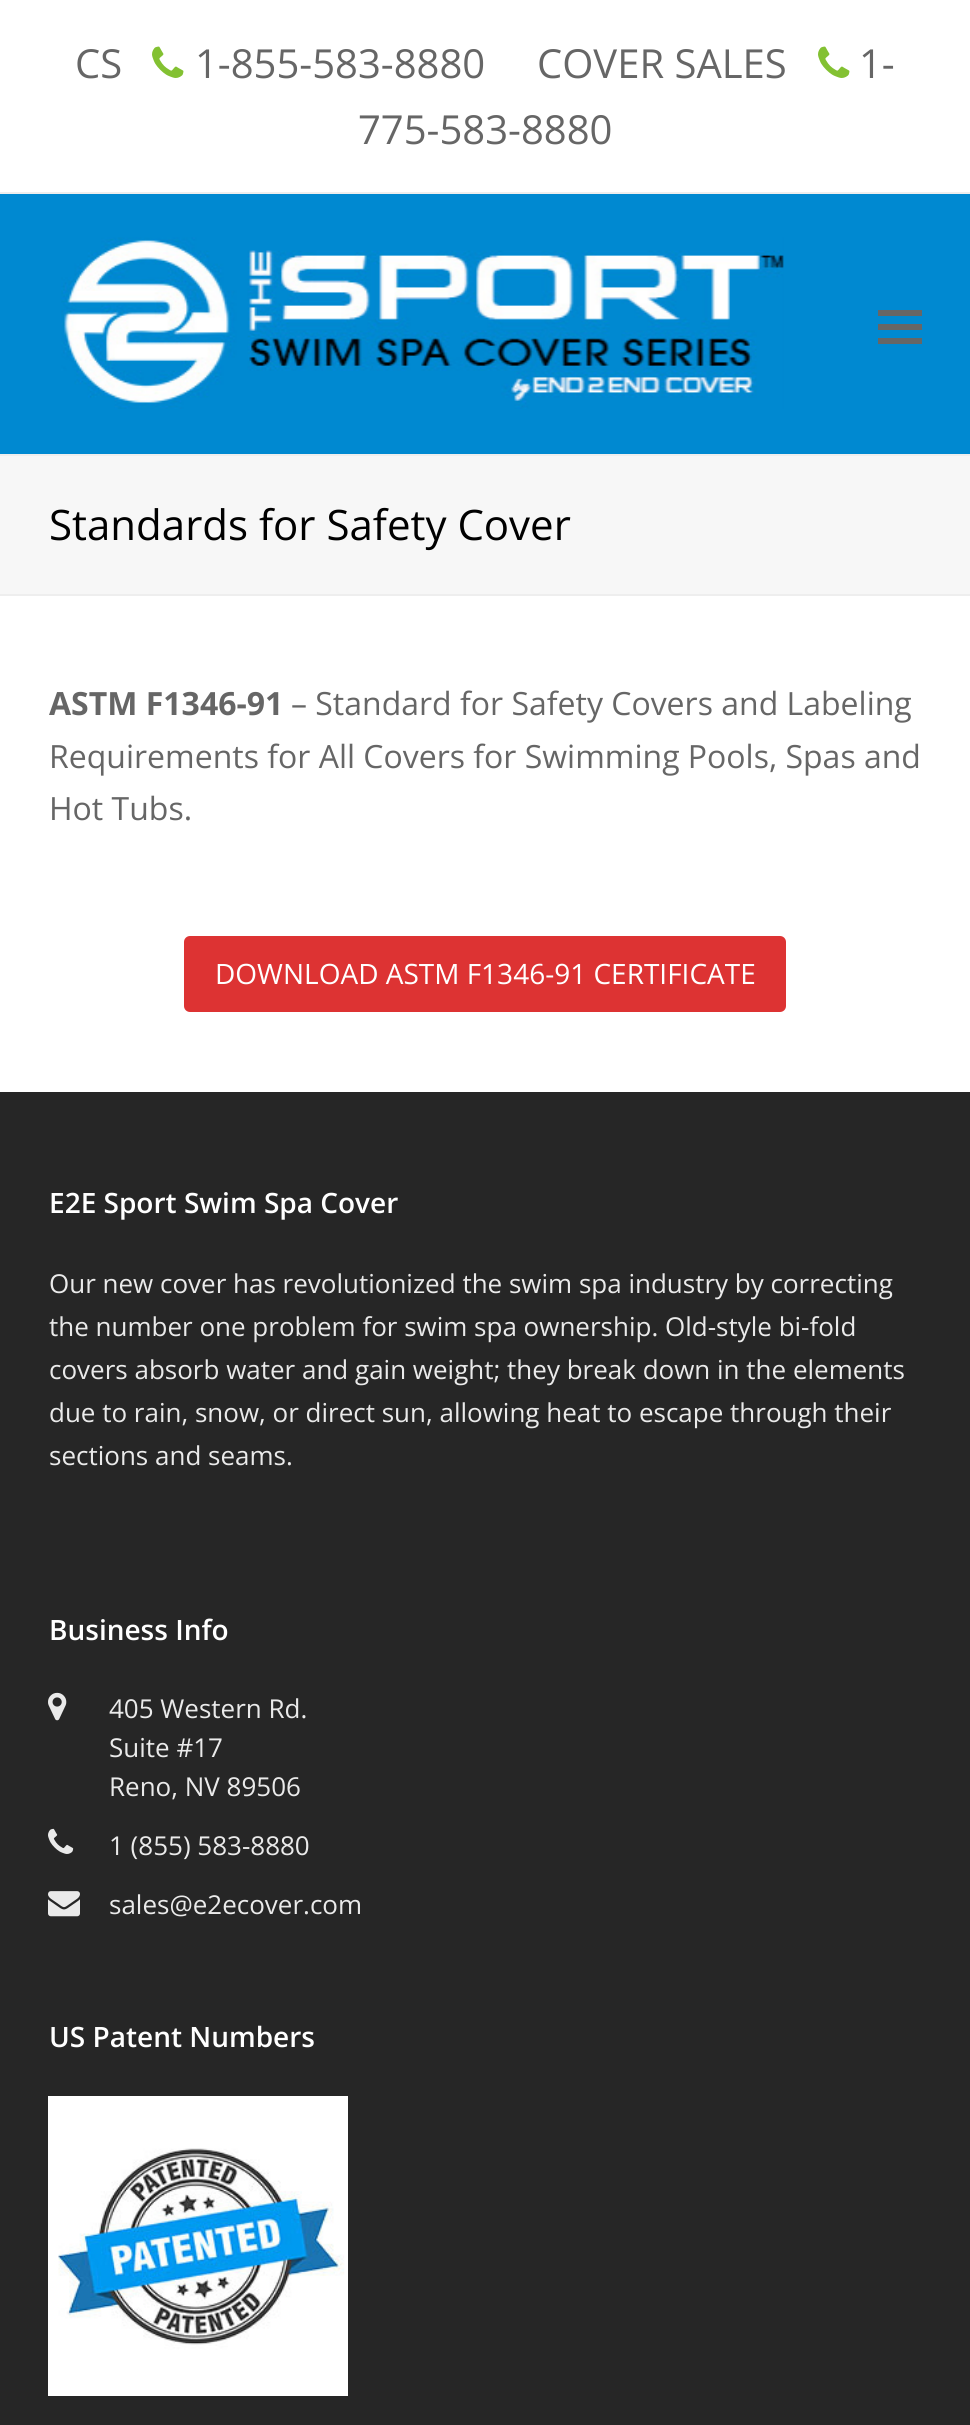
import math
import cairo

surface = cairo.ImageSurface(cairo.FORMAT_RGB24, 970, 2425)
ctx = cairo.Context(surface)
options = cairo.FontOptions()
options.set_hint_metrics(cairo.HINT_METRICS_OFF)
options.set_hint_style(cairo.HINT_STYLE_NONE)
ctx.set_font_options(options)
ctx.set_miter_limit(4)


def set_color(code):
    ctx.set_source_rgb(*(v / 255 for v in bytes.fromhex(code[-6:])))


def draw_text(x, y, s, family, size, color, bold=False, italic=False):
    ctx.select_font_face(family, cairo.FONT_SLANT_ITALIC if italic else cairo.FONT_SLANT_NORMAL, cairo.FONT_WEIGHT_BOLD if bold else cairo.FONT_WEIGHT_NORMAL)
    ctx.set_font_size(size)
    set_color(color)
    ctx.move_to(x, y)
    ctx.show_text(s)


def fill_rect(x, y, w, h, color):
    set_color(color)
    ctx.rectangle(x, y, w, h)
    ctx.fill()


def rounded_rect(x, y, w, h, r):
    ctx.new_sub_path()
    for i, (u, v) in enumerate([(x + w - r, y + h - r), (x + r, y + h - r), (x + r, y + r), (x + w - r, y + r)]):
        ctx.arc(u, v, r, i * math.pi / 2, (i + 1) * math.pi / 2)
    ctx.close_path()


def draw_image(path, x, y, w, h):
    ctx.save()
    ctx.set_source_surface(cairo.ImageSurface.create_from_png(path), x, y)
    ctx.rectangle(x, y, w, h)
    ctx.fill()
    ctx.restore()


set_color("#ffffff")
ctx.paint()
fill_rect(0, 192, 970, 2, "#eeeeee")
draw_text(75, 78, "CS", "Open Sans", 40, "#666666")
draw_image("assets/img1.png", 152, 46, 32, 32)
draw_text(195, 78, "1-855-583-8880", "Open Sans", 40, "#666666")
draw_text(537, 78, "COVER SALES", "Open Sans", 40, "#666666")
draw_image("assets/img1.png", 818, 46, 32, 32)
draw_text(859, 78, "1-", "Open Sans", 40, "#666666")
draw_text(358, 144, "775-583-8880", "Open Sans", 40, "#666666")
fill_rect(0, 194, 970, 260, "#0089d1")
draw_image("assets/img2.png", 61, 237, 723, 172)
fill_rect(878, 324, 44, 6, "#666666")
fill_rect(878, 310, 44, 6, "#666666")
fill_rect(878, 338, 44, 6, "#666666")
fill_rect(0, 456, 970, 138, "#f7f7f7")
fill_rect(0, 454, 970, 2, "#eeeeee")
fill_rect(0, 594, 970, 2, "#eeeeee")
draw_text(49, 540, "Standards for Safety Cover", "Open Sans", 42, "#000000")
draw_text(49, 715, "ASTM F1346-91", "Open Sans", 32, "#666666", bold=True)
draw_text(291, 715, "– Standard for Safety Covers and Labeling", "Open Sans", 32, "#666666")
draw_text(49, 768, "Requirements for All Covers for Swimming Pools, Spas and", "Open Sans", 32, "#666666")
draw_text(49, 820, "Hot Tubs.", "Open Sans", 32, "#666666")
set_color("#dd3333")
rounded_rect(184, 936, 602, 76, 6)
ctx.fill()
draw_text(215, 984, "DOWNLOAD ASTM F1346-91 CERTIFICATE", "Open Sans", 28, "#ffffff")
fill_rect(0, 1092, 970, 1333, "#262626")
draw_text(49, 1213, "E2E Sport Swim Spa Cover", "Open Sans SemiBold", 28, "#ffffff")
draw_text(49, 1293, "Our new cover has revolutionized the swim spa industry by correcting", "Open Sans", 26, "#eaeaea")
draw_text(49, 1336, "the number one problem for swim spa ownership. Old-style bi-fold", "Open Sans", 26, "#eaeaea")
draw_text(49, 1379, "covers absorb water and gain weight; they break down in the elements", "Open Sans", 26, "#eaeaea")
draw_text(49, 1422, "due to rain, snow, or direct sun, allowing heat to escape through their", "Open Sans", 26, "#eaeaea")
draw_text(49, 1465, "sections and seams.", "Open Sans", 26, "#eaeaea")
draw_text(49, 1640, "Business Info", "Open Sans SemiBold", 28, "#ffffff")
draw_image("assets/img3.png", 48, 1692, 19, 29)
draw_text(109, 1718, "405 Western Rd.", "Open Sans", 26, "#eaeaea")
draw_text(109, 1757, "Suite #17", "Open Sans", 26, "#eaeaea")
draw_text(109, 1796, "Reno, NV 89506", "Open Sans", 26, "#eaeaea")
draw_image("assets/img4.png", 48, 1828, 26, 26)
draw_text(109, 1855, "1 (855) 583-8880", "Open Sans", 26, "#eaeaea")
draw_image("assets/img5.png", 48, 1891, 32, 26)
draw_text(109, 1914, "sales@e2ecover.com", "Open Sans", 26, "#eaeaea")
draw_text(49, 2047, "US Patent Numbers", "Open Sans SemiBold", 28, "#ffffff")
draw_image("assets/img6.png", 48, 2096, 300, 300)
surface.write_to_png("output.png")
